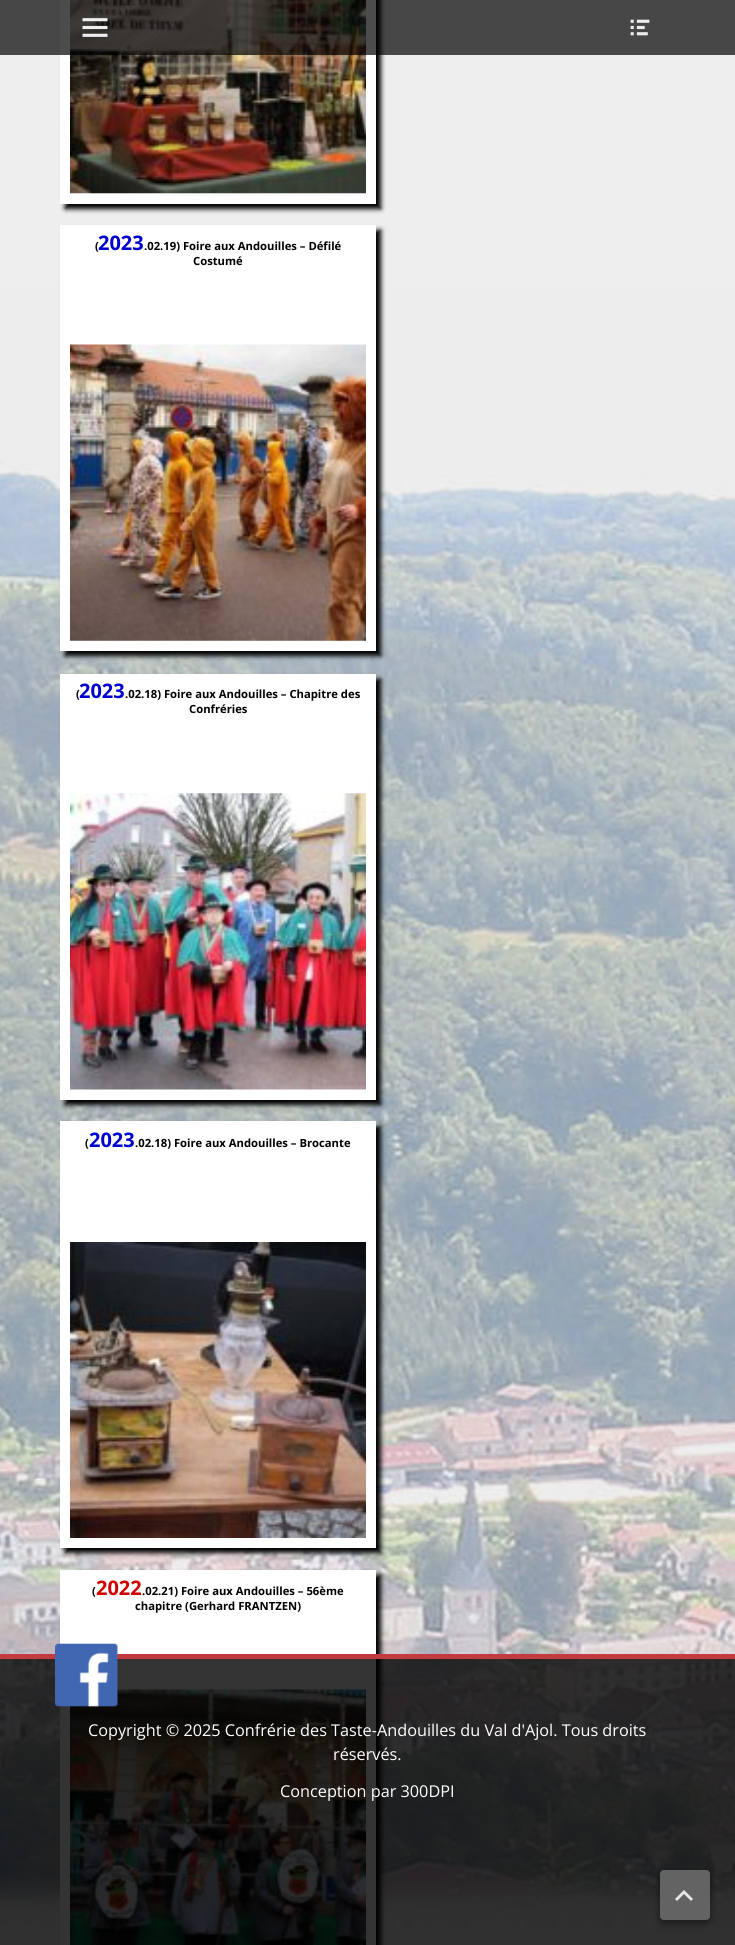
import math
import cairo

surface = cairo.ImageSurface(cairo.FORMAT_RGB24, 735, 1945)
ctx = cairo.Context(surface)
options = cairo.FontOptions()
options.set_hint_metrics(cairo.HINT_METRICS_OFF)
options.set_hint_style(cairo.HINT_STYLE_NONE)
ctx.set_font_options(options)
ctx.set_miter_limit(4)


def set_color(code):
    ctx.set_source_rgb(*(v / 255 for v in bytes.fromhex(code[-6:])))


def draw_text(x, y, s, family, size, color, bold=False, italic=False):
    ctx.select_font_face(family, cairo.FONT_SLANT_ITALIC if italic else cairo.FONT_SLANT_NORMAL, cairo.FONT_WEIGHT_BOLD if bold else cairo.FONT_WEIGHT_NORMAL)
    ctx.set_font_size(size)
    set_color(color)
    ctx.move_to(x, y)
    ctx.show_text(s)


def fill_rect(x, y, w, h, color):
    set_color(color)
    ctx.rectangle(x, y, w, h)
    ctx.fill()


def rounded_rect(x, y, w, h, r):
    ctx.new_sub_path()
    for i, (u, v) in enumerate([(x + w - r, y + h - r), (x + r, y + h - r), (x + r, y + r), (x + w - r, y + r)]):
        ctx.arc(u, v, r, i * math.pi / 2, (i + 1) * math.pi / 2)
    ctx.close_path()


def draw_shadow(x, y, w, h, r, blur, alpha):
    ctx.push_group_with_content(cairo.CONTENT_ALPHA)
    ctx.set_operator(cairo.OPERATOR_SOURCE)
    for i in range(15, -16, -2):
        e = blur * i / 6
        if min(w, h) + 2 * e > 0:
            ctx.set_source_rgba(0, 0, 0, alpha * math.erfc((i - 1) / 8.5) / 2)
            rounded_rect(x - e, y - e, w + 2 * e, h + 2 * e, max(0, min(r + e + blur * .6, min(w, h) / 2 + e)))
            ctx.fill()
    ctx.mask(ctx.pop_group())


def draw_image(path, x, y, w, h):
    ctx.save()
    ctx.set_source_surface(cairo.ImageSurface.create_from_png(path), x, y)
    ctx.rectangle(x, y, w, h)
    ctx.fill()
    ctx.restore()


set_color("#ffffff")
ctx.paint()
draw_image("assets/img1.png", 0, 0, 735, 1945)
set_color("#000000")
draw_shadow(65, -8, 316, 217, 0, 2.5, 1)
fill_rect(70, 193, 296, 1, "#ffffff")
draw_image("assets/img4.png", 70, 0, 296, 194)
ctx.rectangle(65, -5, 306, 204)
ctx.set_line_width(10)
ctx.stroke()
ctx.set_source_rgba(0, 0, 0, 0.7)
ctx.rectangle(0, 0, 735, 55)
ctx.fill()
draw_image("assets/img2.png", 82, 18, 26, 19)
draw_image("assets/img3.png", 630, 19, 20, 17)
set_color("#000000")
draw_shadow(65, 230, 316, 426, 0, 2.5, 1)
fill_rect(70, 235, 296, 406, "#ffffff")
draw_image("assets/img5.png", 70, 344, 296, 297)
ctx.rectangle(65, 230, 306, 416)
ctx.stroke()
draw_text(95, 250, "(", "Open Sans", 11.25, "#000000", bold=True)
draw_text(98, 250, "2023", "Open Sans", 20, "#0000d0", bold=True)
draw_text(144, 250, ".02.19) Foire aux Andouilles – Défilé", "Open Sans", 11.25, "#000000", bold=True)
draw_text(193, 265, "Costumé", "Open Sans", 11.25, "#000000", bold=True)
set_color("#000000")
draw_shadow(65, 679, 316, 426, 0, 2.5, 1)
fill_rect(70, 684, 296, 406, "#ffffff")
draw_image("assets/img6.png", 70, 793, 296, 297)
ctx.rectangle(65, 679, 306, 416)
ctx.stroke()
draw_text(76, 698, "(", "Open Sans", 11.25, "#000000", bold=True)
draw_text(79, 698, "2023", "Open Sans", 20, "#0000d0", bold=True)
draw_text(125, 698, ".02.18) Foire aux Andouilles – Chapitre des", "Open Sans", 11.25, "#000000", bold=True)
draw_text(189, 713, "Confréries", "Open Sans", 11.25, "#000000", bold=True)
set_color("#000000")
draw_shadow(65, 1126, 316, 427, 0, 2.5, 1)
fill_rect(70, 1131, 296, 111, "#ffffff")
draw_image("assets/img7.png", 70, 1242, 296, 296)
ctx.rectangle(65, 1126, 306, 417)
ctx.stroke()
draw_text(85, 1147, "(", "Open Sans", 11.25, "#000000", bold=True)
draw_text(89, 1147, "2023", "Open Sans", 20, "#0000d0", bold=True)
draw_text(135, 1147, ".02.18) Foire aux Andouilles – Brocante", "Open Sans", 11.25, "#000000", bold=True)
set_color("#000000")
draw_shadow(65, 1575, 316, 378, 0, 2.5, 1)
fill_rect(70, 1580, 296, 110, "#ffffff")
draw_image("assets/img8.png", 70, 1689, 296, 256)
ctx.rectangle(65, 1575, 306, 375)
ctx.stroke()
draw_text(92, 1595, "(", "Open Sans", 11.25, "#000000", bold=True)
draw_text(96, 1595, "2022", "Open Sans", 20, "#d00000", bold=True)
draw_text(142, 1595, ".02.21) Foire aux Andouilles – 56ème", "Open Sans", 11.25, "#000000", bold=True)
draw_text(135, 1610, "chapitre (Gerhard FRANTZEN)", "Open Sans", 11.25, "#000000", bold=True)
ctx.set_source_rgba(0, 0, 0, 0.8)
ctx.rectangle(0, 1659, 735, 286)
ctx.fill()
fill_rect(0, 1654, 735, 5, "#c13b40")
draw_image("assets/img9.png", 55, 1643, 63, 64)
draw_text(88, 1736, "Copyright © 2025 Confrérie des Taste-Andouilles du Val d'Ajol. Tous droits", "Open Sans", 16.25, "#ffffff")
draw_text(333, 1760, "réservés.", "Open Sans", 16.25, "#ffffff")
draw_text(280, 1797, "Conception par 300DPI", "Open Sans", 16.25, "#ffffff")
ctx.save()
ctx.set_fill_rule(cairo.FILL_RULE_EVEN_ODD)
ctx.new_path()
ctx.move_to(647, 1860)
ctx.line_to(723, 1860)
ctx.line_to(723, 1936)
ctx.line_to(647, 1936)
ctx.close_path()
ctx.move_to(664, 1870)
ctx.line_to(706, 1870)
ctx.curve_to(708, 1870, 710, 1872, 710, 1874)
ctx.line_to(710, 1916)
ctx.curve_to(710, 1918, 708, 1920, 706, 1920)
ctx.line_to(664, 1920)
ctx.curve_to(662, 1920, 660, 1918, 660, 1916)
ctx.line_to(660, 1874)
ctx.curve_to(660, 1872, 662, 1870, 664, 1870)
ctx.close_path()
ctx.clip()
set_color("#000000")
draw_shadow(660, 1873, 50, 50, 4, 4, 0.48)
ctx.restore()
ctx.set_source_rgba(0.4, 0.4, 0.4, 0.95)
rounded_rect(660, 1870, 50, 50, 4)
ctx.fill()
set_color("#e8e8e8")
ctx.new_path()
ctx.move_to(691, 1901)
ctx.line_to(684, 1894)
ctx.line_to(677, 1901)
ctx.line_to(675, 1899)
ctx.line_to(684, 1890)
ctx.line_to(693, 1899)
ctx.close_path()
ctx.fill()
surface.write_to_png("output.png")
